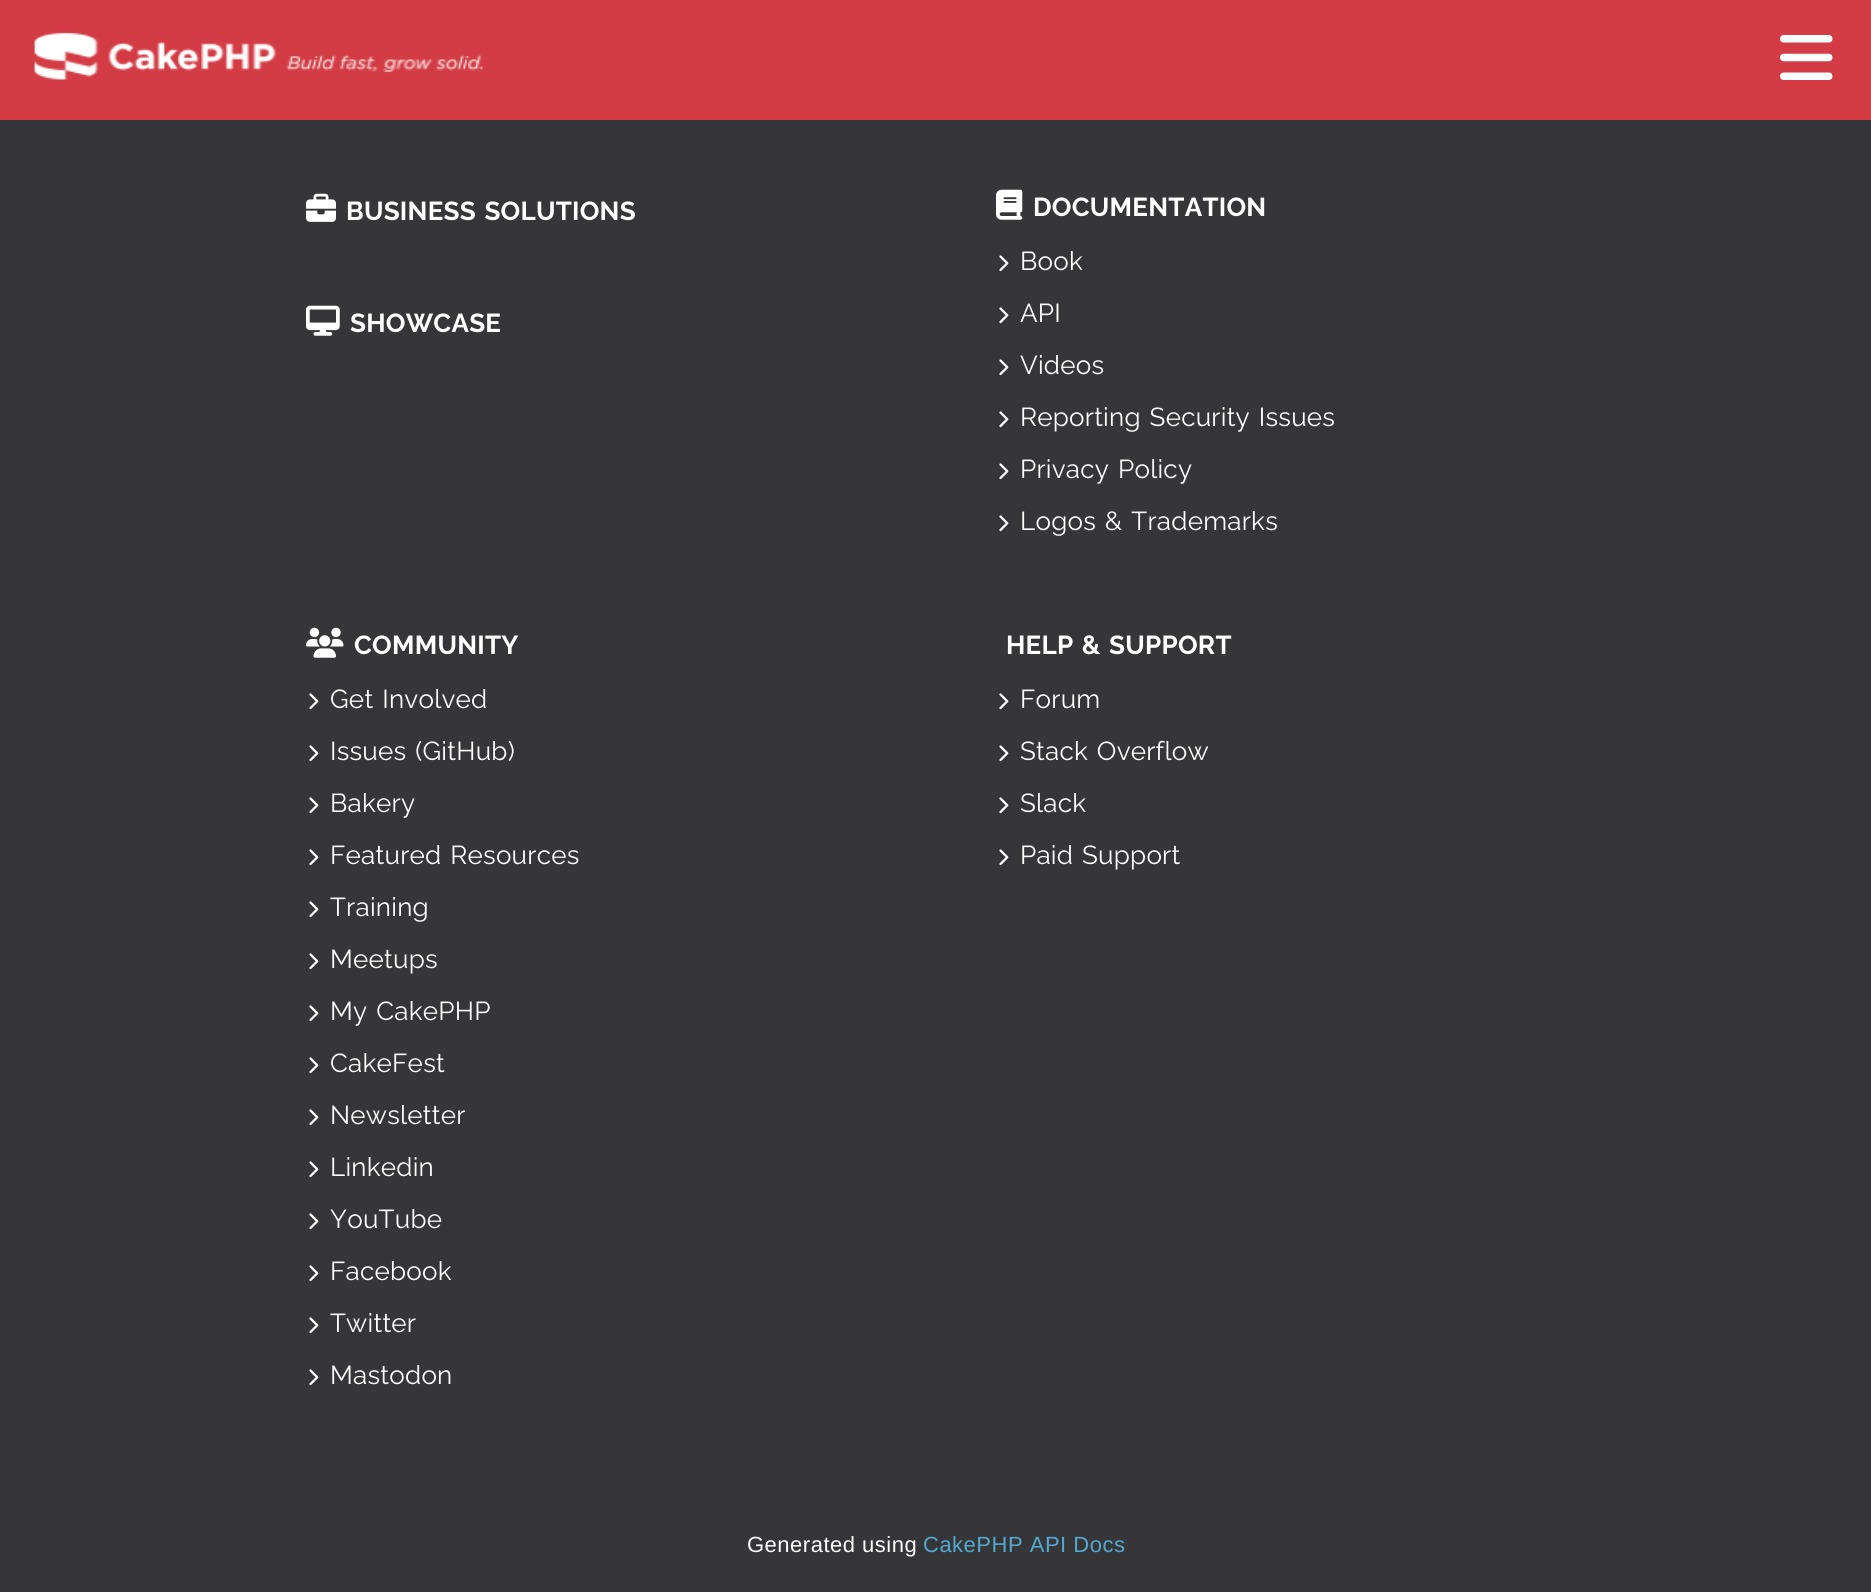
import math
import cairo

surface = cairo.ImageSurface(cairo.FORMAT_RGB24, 1871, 1592)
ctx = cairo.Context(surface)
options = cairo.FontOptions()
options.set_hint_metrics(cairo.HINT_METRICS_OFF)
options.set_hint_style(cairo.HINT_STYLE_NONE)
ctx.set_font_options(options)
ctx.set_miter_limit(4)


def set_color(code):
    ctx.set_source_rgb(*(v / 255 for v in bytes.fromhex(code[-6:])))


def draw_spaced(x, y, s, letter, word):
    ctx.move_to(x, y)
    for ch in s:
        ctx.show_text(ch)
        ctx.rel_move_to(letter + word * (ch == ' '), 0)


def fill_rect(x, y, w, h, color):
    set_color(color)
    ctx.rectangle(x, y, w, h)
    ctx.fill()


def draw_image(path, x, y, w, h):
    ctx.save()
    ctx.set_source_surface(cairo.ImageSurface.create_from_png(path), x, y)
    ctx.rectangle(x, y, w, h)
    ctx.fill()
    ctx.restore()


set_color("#363638")
ctx.paint()
fill_rect(0, 0, 1871, 120, "#d33c44")
draw_image("assets/img1.png", 34, 32, 450, 48)
draw_image("assets/img2.png", 1780, 35, 53, 45)
draw_image("assets/img3.png", 306, 193, 30, 29)
ctx.select_font_face("Raleway", cairo.FONT_SLANT_NORMAL, cairo.FONT_WEIGHT_BOLD)
ctx.set_font_size(26)
set_color("#ffffff")
draw_spaced(346, 220, "BUSINESS SOLUTIONS", 0.25, 2)
draw_image("assets/img4.png", 306, 305, 34, 31)
draw_spaced(350, 332, "SHOWCASE", 0.25, 0)
draw_image("assets/img5.png", 996, 189, 27, 31)
draw_spaced(1033, 216, "DOCUMENTATION", 0.25, 0)
draw_image("assets/img6.png", 999, 255, 10, 17)
ctx.select_font_face("Raleway")
draw_spaced(1020, 270, "Book", 0.25, 0)
draw_image("assets/img6.png", 999, 307, 10, 17)
draw_spaced(1020, 322, "API", 0.25, 0)
draw_image("assets/img6.png", 999, 359, 10, 17)
draw_spaced(1020, 374, "Videos", 0.25, 0)
draw_image("assets/img6.png", 999, 411, 10, 17)
draw_spaced(1020, 426, "Reporting Security Issues", 0.25, 2)
draw_image("assets/img6.png", 999, 463, 10, 17)
draw_spaced(1020, 478, "Privacy Policy", 0.25, 2)
draw_image("assets/img6.png", 999, 515, 10, 17)
draw_spaced(1020, 530, "Logos & Trademarks", 0.25, 2)
draw_image("assets/img7.png", 306, 627, 38, 31)
ctx.select_font_face("Raleway", cairo.FONT_SLANT_NORMAL, cairo.FONT_WEIGHT_BOLD)
draw_spaced(354, 654, "COMMUNITY", 0.25, 0)
draw_image("assets/img6.png", 309, 693, 10, 17)
ctx.select_font_face("Raleway")
draw_spaced(330, 708, "Get Involved", 0.25, 2)
draw_image("assets/img6.png", 309, 745, 10, 17)
draw_spaced(330, 760, "Issues (GitHub)", 0.25, 2)
draw_image("assets/img6.png", 309, 797, 10, 17)
draw_spaced(330, 812, "Bakery", 0.25, 0)
draw_image("assets/img6.png", 309, 849, 10, 17)
draw_spaced(330, 864, "Featured Resources", 0.25, 2)
draw_image("assets/img6.png", 309, 901, 10, 17)
draw_spaced(330, 916, "Training", 0.25, 0)
draw_image("assets/img6.png", 309, 953, 10, 17)
draw_spaced(330, 968, "Meetups", 0.25, 0)
draw_image("assets/img6.png", 309, 1005, 10, 17)
draw_spaced(330, 1020, "My CakePHP", 0.25, 2)
draw_image("assets/img6.png", 309, 1057, 10, 17)
draw_spaced(330, 1072, "CakeFest", 0.25, 0)
draw_image("assets/img6.png", 309, 1109, 10, 17)
draw_spaced(330, 1124, "Newsletter", 0.25, 0)
draw_image("assets/img6.png", 309, 1161, 10, 17)
draw_spaced(330, 1176, "Linkedin", 0.25, 0)
draw_image("assets/img6.png", 309, 1213, 10, 17)
draw_spaced(330, 1228, "YouTube", 0.25, 0)
draw_image("assets/img6.png", 309, 1265, 10, 17)
draw_spaced(330, 1280, "Facebook", 0.25, 0)
draw_image("assets/img6.png", 309, 1317, 10, 17)
draw_spaced(330, 1332, "Twitter", 0.25, 0)
draw_image("assets/img6.png", 309, 1369, 10, 17)
draw_spaced(330, 1384, "Mastodon", 0.25, 0)
ctx.select_font_face("Raleway", cairo.FONT_SLANT_NORMAL, cairo.FONT_WEIGHT_BOLD)
draw_spaced(1006, 654, "HELP & SUPPORT", 0.25, 2)
draw_image("assets/img6.png", 999, 693, 10, 17)
ctx.select_font_face("Raleway")
draw_spaced(1020, 708, "Forum", 0.25, 0)
draw_image("assets/img6.png", 999, 745, 10, 17)
draw_spaced(1020, 760, "Stack Overflow", 0.25, 2)
draw_image("assets/img6.png", 999, 797, 10, 17)
draw_spaced(1020, 812, "Slack", 0.25, 0)
draw_image("assets/img6.png", 999, 849, 10, 17)
draw_spaced(1020, 864, "Paid Support", 0.25, 2)
ctx.select_font_face("Liberation Sans")
ctx.set_font_size(22)
draw_spaced(747, 1552, "Generated using", 0.5, 0)
set_color("#53a8d0")
draw_spaced(923, 1552, "CakePHP API Docs", 0.5, 0)
surface.write_to_png("output.png")
